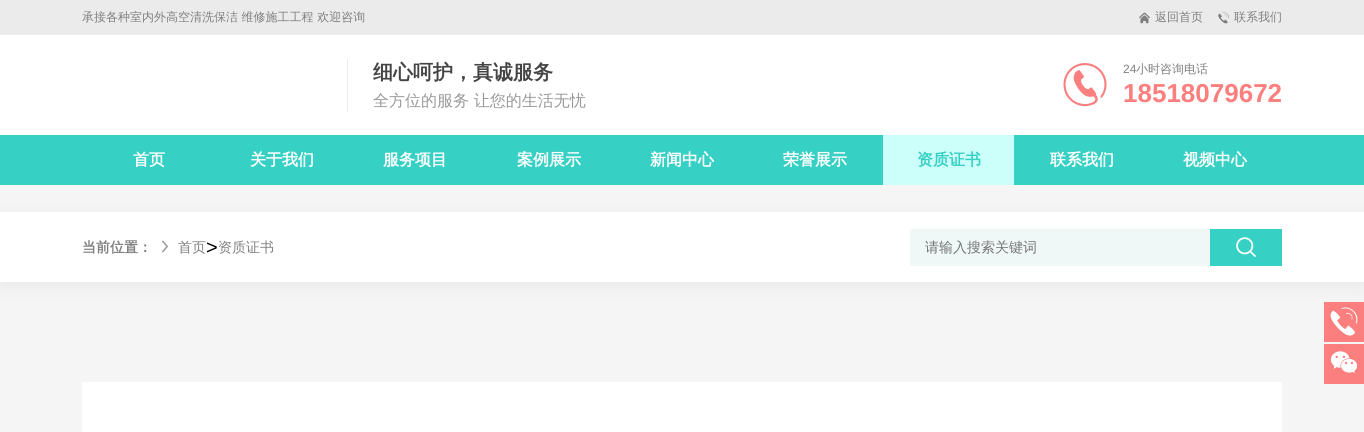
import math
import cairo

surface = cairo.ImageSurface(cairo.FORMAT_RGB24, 1364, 432)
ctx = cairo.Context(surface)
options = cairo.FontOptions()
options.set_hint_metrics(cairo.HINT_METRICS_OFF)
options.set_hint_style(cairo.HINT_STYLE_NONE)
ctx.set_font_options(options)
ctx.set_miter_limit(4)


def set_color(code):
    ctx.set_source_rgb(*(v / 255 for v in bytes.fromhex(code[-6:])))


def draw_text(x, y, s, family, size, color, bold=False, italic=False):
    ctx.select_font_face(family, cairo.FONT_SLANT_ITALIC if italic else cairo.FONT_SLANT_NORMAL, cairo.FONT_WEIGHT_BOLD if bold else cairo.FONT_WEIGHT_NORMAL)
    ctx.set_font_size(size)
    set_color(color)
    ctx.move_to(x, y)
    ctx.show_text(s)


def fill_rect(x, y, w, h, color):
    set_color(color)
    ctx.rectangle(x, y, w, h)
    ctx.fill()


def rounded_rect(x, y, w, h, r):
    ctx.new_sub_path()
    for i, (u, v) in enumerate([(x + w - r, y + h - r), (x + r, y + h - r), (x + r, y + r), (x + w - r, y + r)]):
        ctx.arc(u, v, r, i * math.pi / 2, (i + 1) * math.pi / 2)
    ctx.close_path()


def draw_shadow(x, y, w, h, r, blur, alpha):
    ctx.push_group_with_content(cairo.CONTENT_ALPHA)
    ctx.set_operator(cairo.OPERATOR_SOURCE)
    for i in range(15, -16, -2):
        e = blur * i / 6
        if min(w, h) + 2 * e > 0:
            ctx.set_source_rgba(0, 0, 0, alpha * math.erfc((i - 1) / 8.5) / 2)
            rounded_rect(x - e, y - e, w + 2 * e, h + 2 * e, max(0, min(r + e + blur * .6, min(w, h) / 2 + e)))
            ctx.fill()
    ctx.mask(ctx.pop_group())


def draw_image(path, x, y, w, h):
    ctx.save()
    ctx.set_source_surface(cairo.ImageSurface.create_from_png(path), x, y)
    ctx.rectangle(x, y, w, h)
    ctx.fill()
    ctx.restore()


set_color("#f5f5f5")
ctx.paint()
fill_rect(0, 0, 1364, 35, "#ebebeb")
draw_text(82, 21, "承接各种室内外高空清洗保洁 维修施工工程 欢迎咨询", "WenQuanYi Zen Hei Medium", 12, "#808080")
draw_image("assets/img1.png", 1139, 12, 11, 12)
draw_text(1155, 21, "返回首页", "WenQuanYi Zen Hei Medium", 12, "#808080")
draw_image("assets/img2.png", 1218, 12, 11, 12)
draw_text(1234, 21, "联系我们", "WenQuanYi Zen Hei Medium", 12, "#808080")
fill_rect(0, 35, 1364, 100, "#ffffff")
fill_rect(347, 59, 1, 53, "#ebebeb")
draw_text(373, 79, "细心呵护，真诚服务", "WenQuanYi Zen Hei", 20, "#444444", bold=True)
draw_text(373, 106, "全方位的服务 让您的生活无忧", "WenQuanYi Zen Hei Medium", 16, "#999999")
draw_image("assets/img3.png", 1063, 63, 44, 44)
draw_text(1123, 73, "24", "Liberation Sans", 12, "#808080")
draw_text(1136, 73, "小时咨询电话", "WenQuanYi Zen Hei Medium", 12, "#808080")
draw_text(1123, 102, "18518079672", "Liberation Sans", 26, "#fb7f7f", bold=True)
fill_rect(0, 135, 1364, 50, "#36d0c4")
draw_text(133, 165, "首页", "WenQuanYi Zen Hei", 16, "#ffffff", bold=True)
draw_text(250, 165, "关于我们", "WenQuanYi Zen Hei", 16, "#ffffff", bold=True)
draw_text(383, 165, "服务项目", "WenQuanYi Zen Hei", 16, "#ffffff", bold=True)
draw_text(517, 165, "案例展示", "WenQuanYi Zen Hei", 16, "#ffffff", bold=True)
draw_text(650, 165, "新闻中心", "WenQuanYi Zen Hei", 16, "#ffffff", bold=True)
draw_text(783, 165, "荣誉展示", "WenQuanYi Zen Hei", 16, "#ffffff", bold=True)
fill_rect(883, 135, 131, 50, "#ccfefa")
draw_text(917, 165, "资质证书", "WenQuanYi Zen Hei", 16, "#36d0c4", bold=True)
draw_text(1050, 165, "联系我们", "WenQuanYi Zen Hei", 16, "#ffffff", bold=True)
draw_text(1183, 165, "视频中心", "WenQuanYi Zen Hei", 16, "#ffffff", bold=True)
set_color("#000000")
draw_shadow(0, 217, 1364, 70, 0, 10, 0.05)
fill_rect(0, 212, 1364, 70, "#ffffff")
draw_text(82, 252, "当前位置：", "WenQuanYi Zen Hei", 14, "#808080", bold=True)
draw_image("assets/img4.png", 162, 240, 6, 13)
draw_text(178, 252, "首页", "WenQuanYi Zen Hei Medium", 14, "#808080")
draw_text(206, 254, ">", "Liberation Sans", 20, "#000000")
draw_text(218, 252, "资质证书", "WenQuanYi Zen Hei Medium", 14, "#808080")
fill_rect(910, 229, 300, 37, "#f0f7f7")
draw_text(925, 252, "请输入搜索关键词", "WenQuanYi Zen Hei Medium", 14, "#757575")
fill_rect(1210, 229, 72, 37, "#36d0c4")
draw_image("assets/img5.png", 1236, 237, 20, 20)
fill_rect(1324, 302, 40, 40, "#fb7f7f")
draw_image("assets/img6.png", 1330, 307, 28, 29)
fill_rect(1324, 344, 40, 40, "#fb7f7f")
draw_image("assets/img7.png", 1330, 351, 28, 22)
fill_rect(82, 382, 1200, 50, "#ffffff")
surface.write_to_png("output.png")
